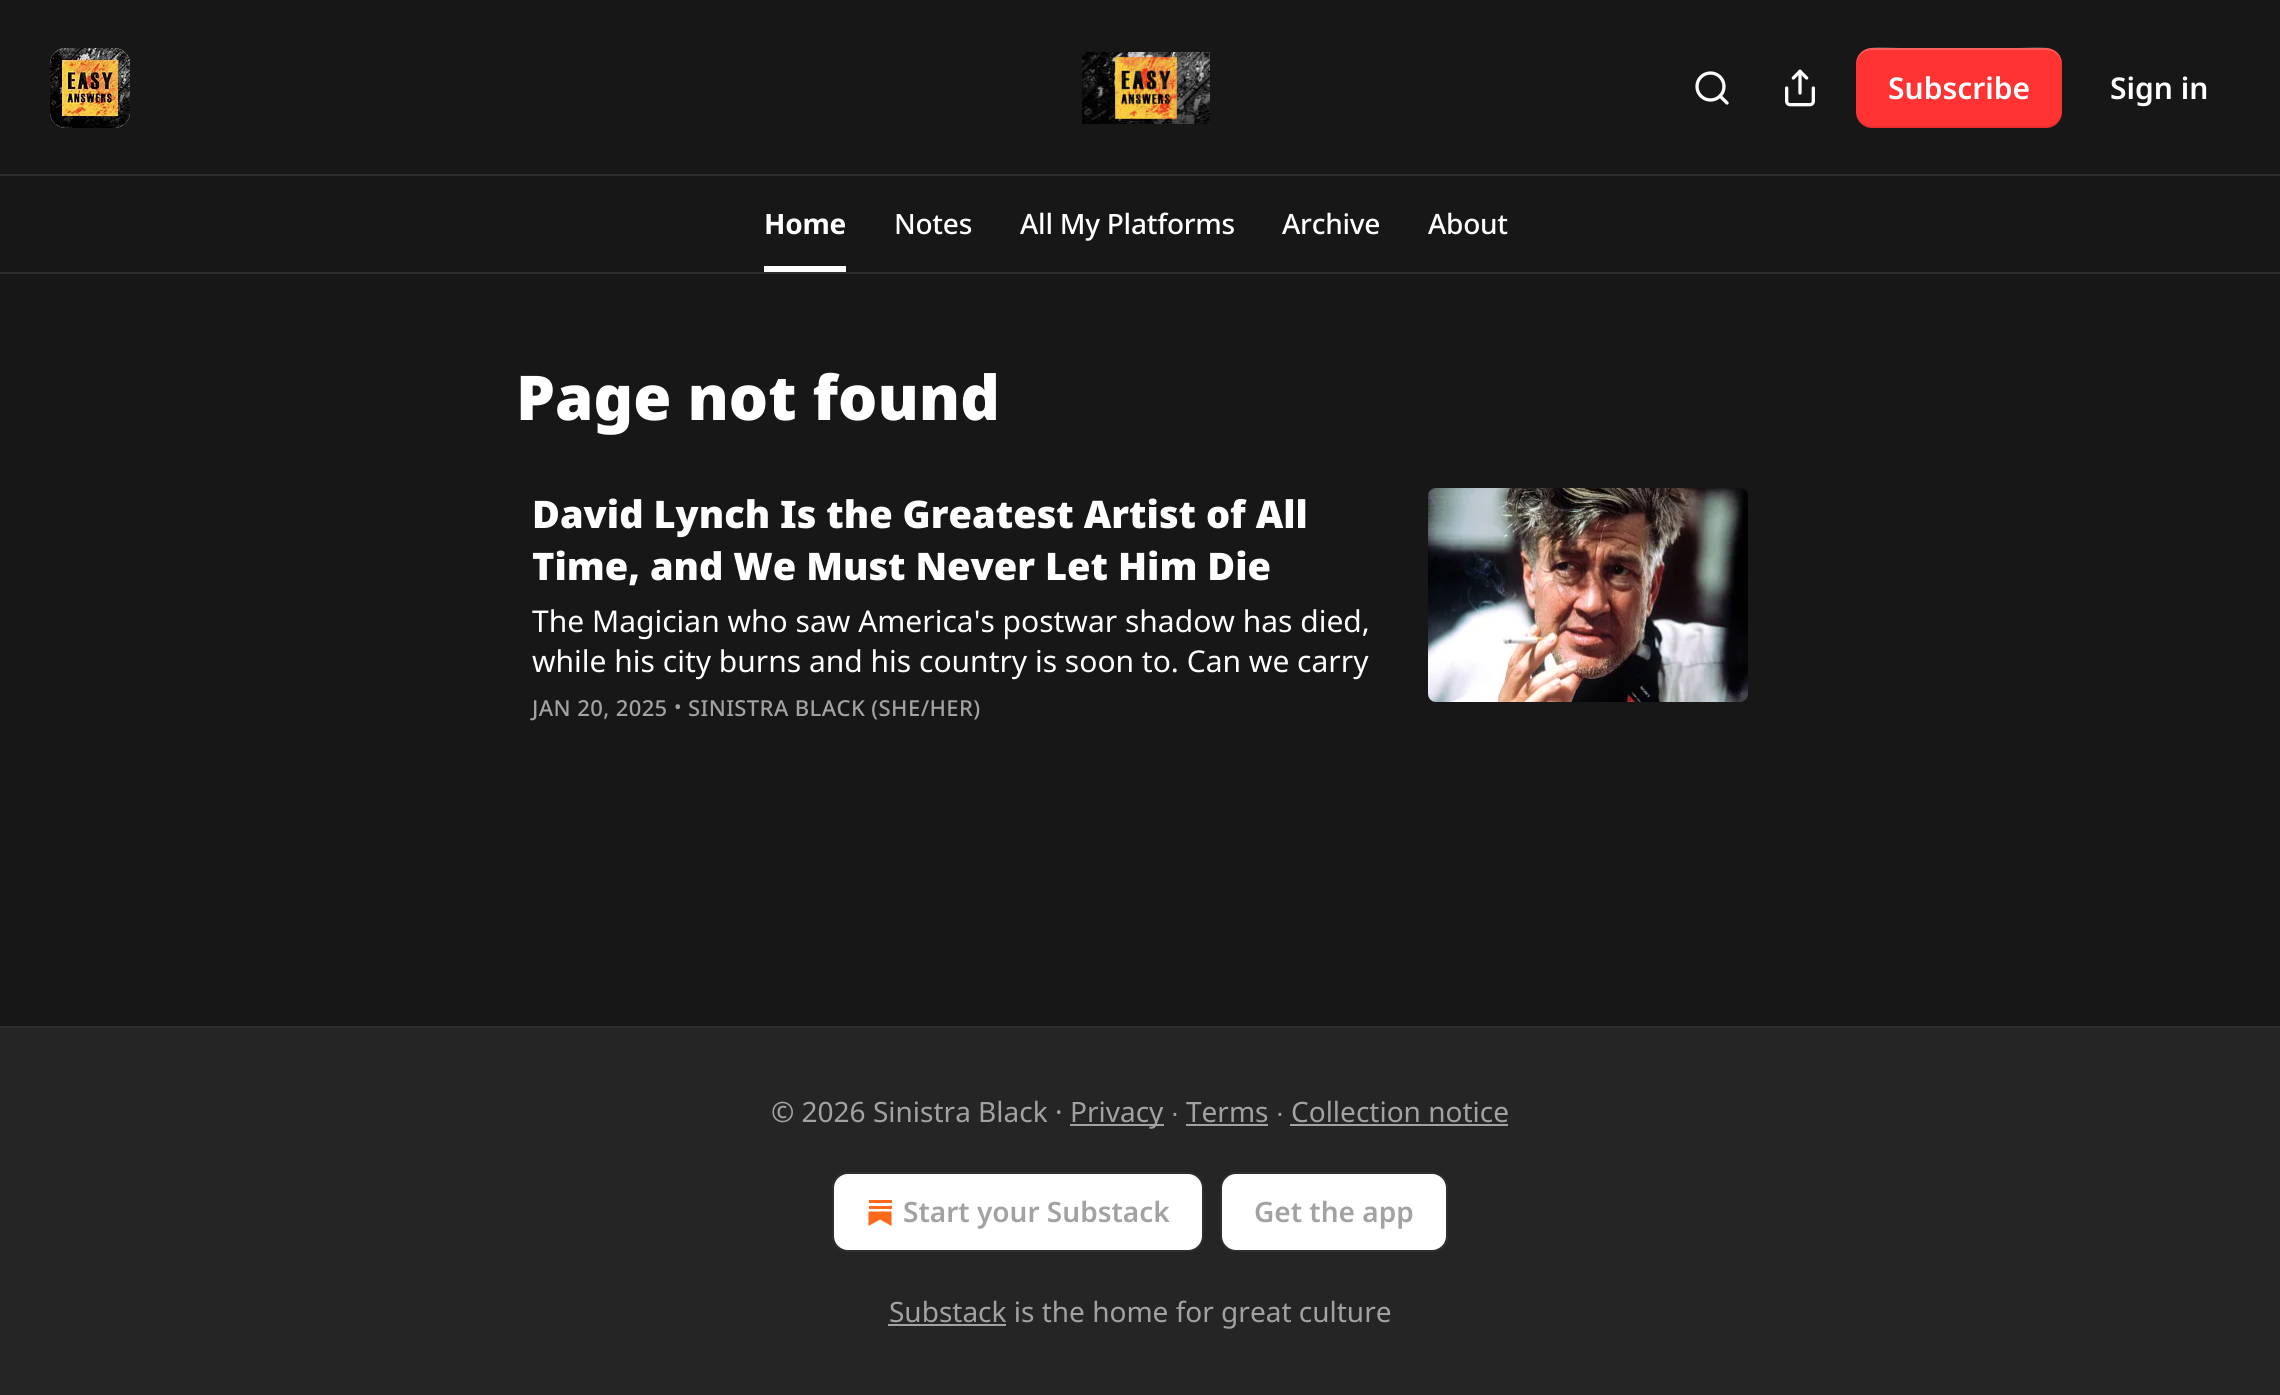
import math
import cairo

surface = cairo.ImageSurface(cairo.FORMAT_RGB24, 2280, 1395)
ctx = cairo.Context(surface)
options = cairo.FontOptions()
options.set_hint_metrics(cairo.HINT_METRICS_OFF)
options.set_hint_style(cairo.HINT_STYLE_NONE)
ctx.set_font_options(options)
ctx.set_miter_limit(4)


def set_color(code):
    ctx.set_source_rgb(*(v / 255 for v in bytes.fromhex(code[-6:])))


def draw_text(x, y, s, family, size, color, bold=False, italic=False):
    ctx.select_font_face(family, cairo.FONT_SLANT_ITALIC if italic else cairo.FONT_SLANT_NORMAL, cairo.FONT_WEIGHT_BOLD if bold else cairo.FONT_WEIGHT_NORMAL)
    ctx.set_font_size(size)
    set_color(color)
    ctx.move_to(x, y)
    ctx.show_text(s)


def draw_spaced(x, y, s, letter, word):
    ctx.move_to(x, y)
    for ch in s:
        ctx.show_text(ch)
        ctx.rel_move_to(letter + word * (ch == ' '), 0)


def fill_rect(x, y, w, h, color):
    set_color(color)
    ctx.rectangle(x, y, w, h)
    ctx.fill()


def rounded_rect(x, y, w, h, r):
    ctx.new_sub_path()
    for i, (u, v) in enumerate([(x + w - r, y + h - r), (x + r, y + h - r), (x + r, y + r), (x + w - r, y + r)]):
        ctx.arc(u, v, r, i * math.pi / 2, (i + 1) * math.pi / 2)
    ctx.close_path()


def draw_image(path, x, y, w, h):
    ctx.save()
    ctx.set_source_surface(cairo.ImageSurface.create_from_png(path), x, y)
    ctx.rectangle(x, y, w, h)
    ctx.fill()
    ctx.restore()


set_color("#171717")
ctx.paint()
set_color("#ffffff")
rounded_rect(50, 48, 80, 80, 16)
ctx.fill()
draw_image("assets/img1.png", 50, 48, 80, 80)
draw_image("assets/img2.png", 1082, 52, 128, 72)
ctx.arc(1710.5, 86.5, 13.5, 0, 2 * math.pi)
ctx.set_line_width(3.3)
ctx.stroke()
ctx.new_path()
ctx.move_to(1727, 103)
ctx.line_to(1720, 96)
ctx.set_line_cap(cairo.LINE_CAP_ROUND)
ctx.set_line_join(cairo.LINE_JOIN_ROUND)
ctx.stroke()
draw_image("assets/img3.png", 1785, 69, 30, 38)
set_color("#ff3333")
rounded_rect(1856, 48, 206, 80, 16)
ctx.fill()
ctx.set_source_rgba(0, 0, 0, 0.1)
ctx.new_path()
ctx.move_to(1856, 110)
ctx.curve_to(1856, 135, 1885, 128, 1901, 128)
ctx.line_to(2017, 128)
ctx.curve_to(2033, 128, 2062, 135, 2062, 110)
ctx.curve_to(2062, 119, 2055, 126, 2046, 126)
ctx.line_to(1872, 126)
ctx.curve_to(1863, 126, 1856, 119, 1856, 110)
ctx.close_path()
ctx.fill()
ctx.set_source_rgba(1, 1, 1, 0.2)
ctx.new_path()
ctx.move_to(1872, 50)
ctx.line_to(2046, 50)
ctx.curve_to(2055, 50, 2062, 57, 2062, 66)
ctx.curve_to(2062, 41, 2033, 48, 2017, 48)
ctx.line_to(1901, 48)
ctx.curve_to(1885, 48, 1856, 41, 1856, 66)
ctx.curve_to(1856, 57, 1863, 50, 1872, 50)
ctx.close_path()
ctx.fill()
draw_text(1888, 99, "Subscribe", "Noto Sans SemiBold", 30, "#ffffff")
draw_text(2110, 99, "Sign in", "Noto Sans SemiBold", 30, "#ffffff")
fill_rect(0, 174, 2280, 2, "#2e2e2e")
fill_rect(0, 272, 2280, 2, "#2e2e2e")
fill_rect(764, 266, 82, 6, "#ffffff")
ctx.select_font_face("Noto Sans", cairo.FONT_SLANT_NORMAL, cairo.FONT_WEIGHT_BOLD)
ctx.set_font_size(28)
draw_spaced(764, 234, "Home", -0.25, 0)
ctx.select_font_face("Noto Sans Medium")
draw_spaced(894, 234, "Notes", -0.25, 0)
draw_spaced(1020, 234, "All My Platforms", -0.25, 0)
draw_spaced(1282, 234, "Archive", -0.25, 0)
draw_spaced(1428, 234, "About", -0.25, 0)
draw_text(516, 420, "Page not found", "Noto Sans Black", 61.75, "#ffffff")
draw_text(532, 528, "David Lynch Is the Greatest Artist of All", "Noto Sans Black", 38, "#ffffff")
draw_text(532, 580, "Time, and We Must Never Let Him Die", "Noto Sans Black", 38, "#ffffff")
draw_text(532, 632, "The Magician who saw America's postwar shadow has died,", "Noto Sans", 30, "#ffffff")
draw_text(532, 672, "while his city burns and his country is soon to. Can we carry", "Noto Sans", 30, "#ffffff")
ctx.select_font_face("Noto Sans Medium")
ctx.set_font_size(22)
set_color("#a2a2a2")
draw_spaced(532, 716, "JAN 20, 2025", 0.4, 0)
ctx.select_font_face("Noto Sans")
ctx.set_font_size(20)
draw_spaced(674, 714, "•", 0.4, 0)
ctx.select_font_face("Noto Sans Medium")
ctx.set_font_size(22)
draw_spaced(688, 716, "SINISTRA BLACK (SHE/HER)", 0.4, 0)
draw_image("assets/img4.png", 1428, 488, 320, 214)
fill_rect(0, 1028, 2280, 367, "#252525")
fill_rect(0, 1026, 2280, 2, "#2e2e2e")
draw_text(771, 1122, "© 2026 Sinistra Black ·", "Noto Sans", 28, "#a2a2a2")
fill_rect(1070, 1124, 94, 2, "#a2a2a2")
draw_text(1070, 1122, "Privacy", "Noto Sans", 28, "#a2a2a2")
draw_text(1171, 1122, "∙", "Liberation Sans", 28, "#a2a2a2")
draw_text(1186, 1122, "Terms", "Noto Sans", 28, "#a2a2a2")
fill_rect(1186, 1124, 82, 2, "#a2a2a2")
draw_text(1276, 1122, "∙", "Liberation Sans", 28, "#a2a2a2")
draw_text(1291, 1122, "Collection notice", "Noto Sans", 28, "#a2a2a2")
fill_rect(1290, 1124, 218, 2, "#a2a2a2")
set_color("#ffffff")
rounded_rect(833, 1173, 370, 78, 15)
ctx.fill_preserve()
set_color("#2e2e2e")
ctx.set_line_width(2)
ctx.set_line_cap(cairo.LINE_CAP_BUTT)
ctx.set_line_join(cairo.LINE_JOIN_MITER)
ctx.stroke()
fill_rect(869, 1206, 23, 3, "#ff6719")
ctx.new_path()
ctx.move_to(868.5, 1211.5)
ctx.line_to(868.5, 1226)
ctx.line_to(880, 1219.5)
ctx.line_to(891.5, 1226)
ctx.line_to(891.5, 1211.5)
ctx.close_path()
ctx.fill()
fill_rect(869, 1200, 23, 3, "#ff6719")
draw_text(903, 1222, "Start your Substack", "Noto Sans SemiBold", 28, "#a2a2a2")
set_color("#ffffff")
rounded_rect(1221, 1173, 226, 78, 15)
ctx.fill_preserve()
set_color("#2e2e2e")
ctx.stroke()
draw_text(1254, 1222, "Get the app", "Noto Sans SemiBold", 28, "#a2a2a2")
fill_rect(888, 1324, 118, 2, "#a2a2a2")
draw_text(889, 1322, "Substack is the home for great culture", "Noto Sans", 28, "#a2a2a2")
surface.write_to_png("output.png")
